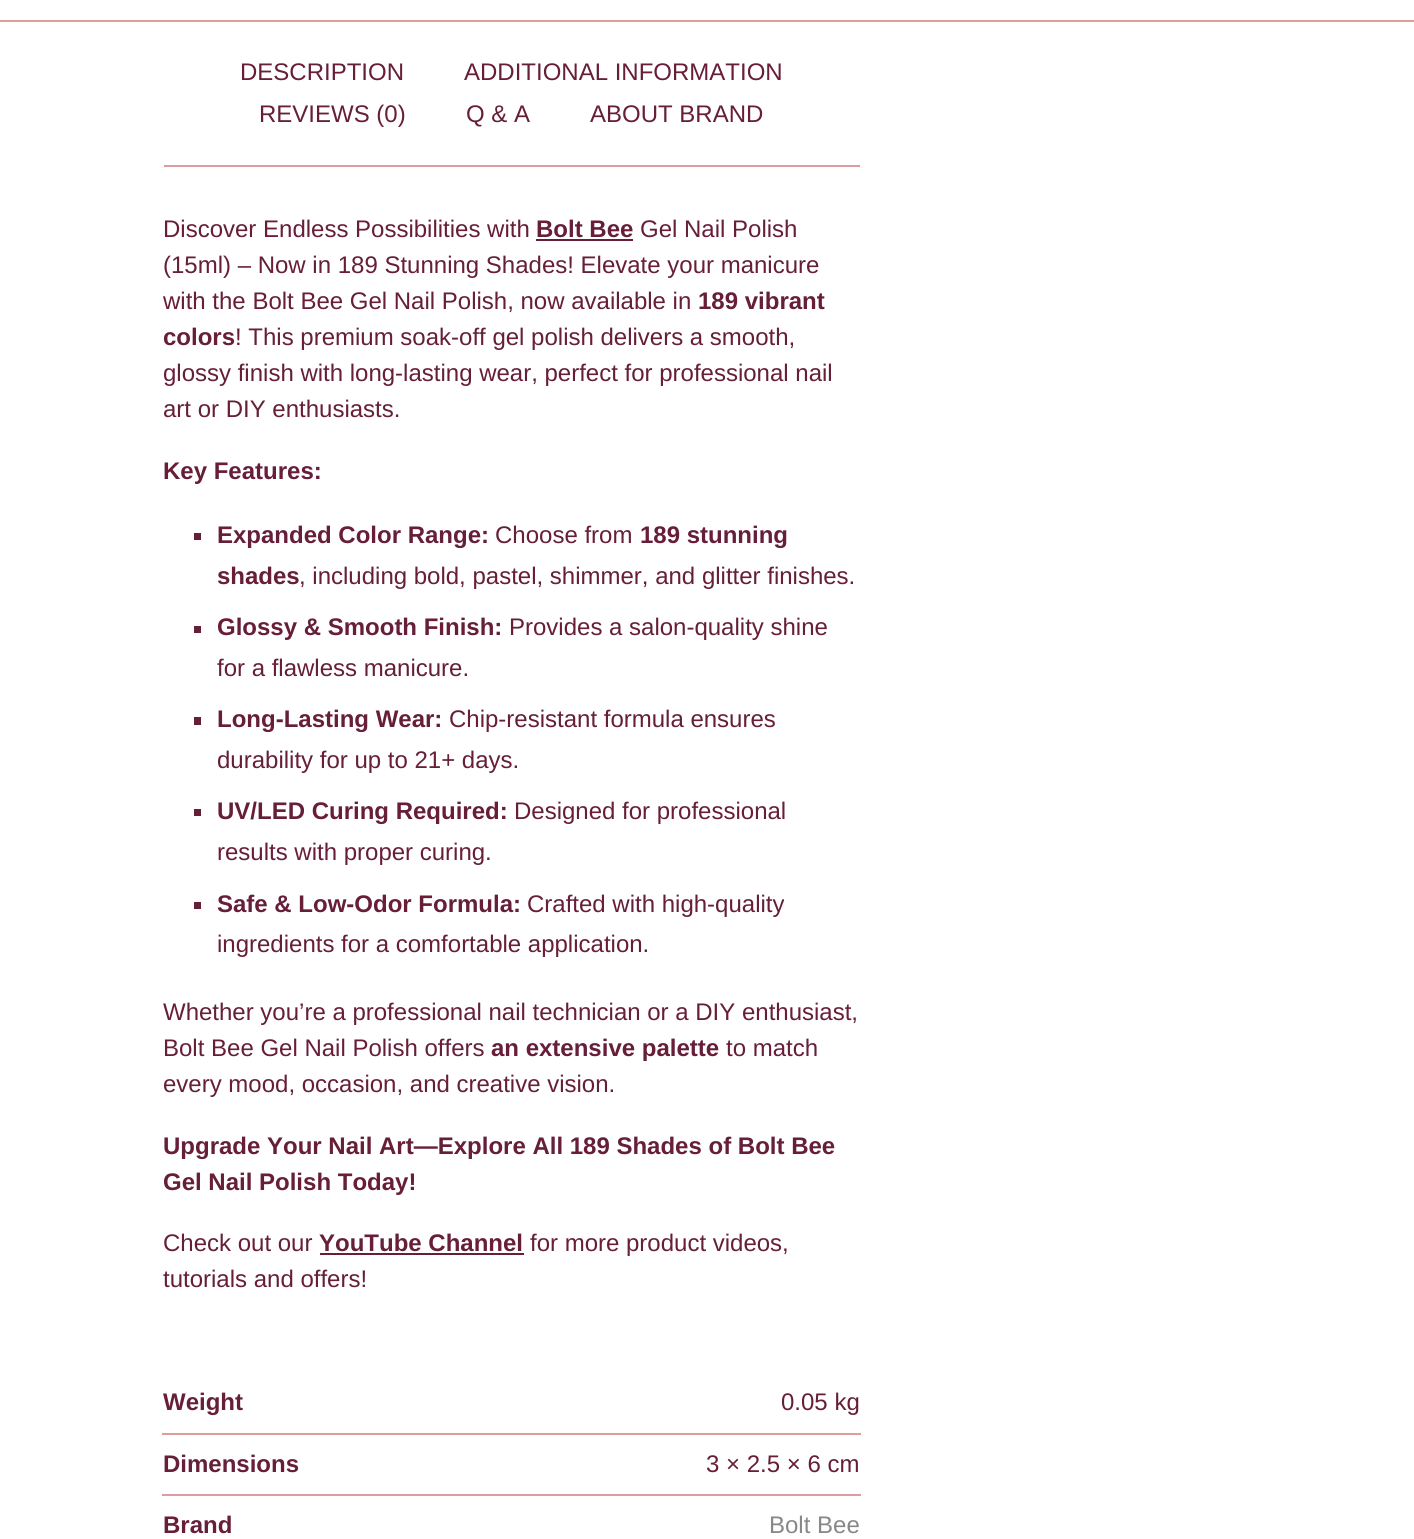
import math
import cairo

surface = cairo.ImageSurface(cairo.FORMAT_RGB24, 1414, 1539)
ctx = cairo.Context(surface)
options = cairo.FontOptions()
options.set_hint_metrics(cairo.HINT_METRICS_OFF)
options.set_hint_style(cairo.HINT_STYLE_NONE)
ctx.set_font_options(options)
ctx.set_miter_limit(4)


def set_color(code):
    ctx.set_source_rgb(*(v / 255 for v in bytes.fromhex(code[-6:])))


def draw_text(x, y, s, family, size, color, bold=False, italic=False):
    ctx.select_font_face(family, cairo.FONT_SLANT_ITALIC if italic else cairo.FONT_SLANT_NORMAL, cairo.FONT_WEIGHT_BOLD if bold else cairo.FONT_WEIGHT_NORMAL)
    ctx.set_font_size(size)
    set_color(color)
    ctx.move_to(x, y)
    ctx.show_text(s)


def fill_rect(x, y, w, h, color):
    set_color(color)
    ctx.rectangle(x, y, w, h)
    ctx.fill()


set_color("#ffffff")
ctx.paint()
fill_rect(0, 20, 1414, 2, "#de9d9d")
fill_rect(164, 165, 696, 2, "#de9d9d")
draw_text(240, 80, "DESCRIPTION", "Liberation Sans", 24, "#661e39")
draw_text(464, 80, "ADDITIONAL INFORMATION", "Liberation Sans", 24, "#661e39")
draw_text(259, 122, "REVIEWS (0)", "Liberation Sans", 24, "#661e39")
draw_text(466, 122, "Q & A", "Liberation Sans", 24, "#661e39")
draw_text(590, 122, "ABOUT BRAND", "Liberation Sans", 24, "#661e39")
draw_text(163, 237, "Discover Endless Possibilities with", "Liberation Sans", 24, "#661e39")
draw_text(536, 237, "Bolt Bee", "Liberation Sans", 24, "#661e39", bold=True)
fill_rect(536, 239, 97, 2, "#661e39")
draw_text(640, 237, "Gel Nail Polish", "Liberation Sans", 24, "#661e39")
draw_text(163, 273, "(15ml) – Now in 189 Stunning Shades! Elevate your manicure", "Liberation Sans", 24, "#661e39")
draw_text(163, 309, "with the Bolt Bee Gel Nail Polish, now available in", "Liberation Sans", 24, "#661e39")
draw_text(698, 309, "189 vibrant", "Liberation Sans", 24, "#661e39", bold=True)
draw_text(163, 345, "colors", "Liberation Sans", 24, "#661e39", bold=True)
draw_text(235, 345, "! This premium soak-off gel polish delivers a smooth,", "Liberation Sans", 24, "#661e39")
draw_text(163, 381, "glossy finish with long-lasting wear, perfect for professional nail", "Liberation Sans", 24, "#661e39")
draw_text(163, 417, "art or DIY enthusiasts.", "Liberation Sans", 24, "#661e39")
draw_text(163, 479, "Key Features:", "Liberation Sans", 24, "#661e39", bold=True)
fill_rect(194, 533, 7, 7, "#661e39")
draw_text(217, 543, "Expanded Color Range:", "Liberation Sans", 24, "#661e39", bold=True)
draw_text(495, 543, "Choose from", "Liberation Sans", 24, "#661e39")
draw_text(640, 543, "189 stunning", "Liberation Sans", 24, "#661e39", bold=True)
draw_text(217, 584, "shades", "Liberation Sans", 24, "#661e39", bold=True)
draw_text(299, 584, ", including bold, pastel, shimmer, and glitter finishes.", "Liberation Sans", 24, "#661e39")
fill_rect(194, 626, 7, 7, "#661e39")
draw_text(217, 635, "Glossy & Smooth Finish:", "Liberation Sans", 24, "#661e39", bold=True)
draw_text(509, 635, "Provides a salon-quality shine", "Liberation Sans", 24, "#661e39")
draw_text(217, 676, "for a flawless manicure.", "Liberation Sans", 24, "#661e39")
fill_rect(194, 717, 7, 8, "#661e39")
draw_text(217, 727, "Long-Lasting Wear:", "Liberation Sans", 24, "#661e39", bold=True)
draw_text(449, 727, "Chip-resistant formula ensures", "Liberation Sans", 24, "#661e39")
draw_text(217, 768, "durability for up to 21+ days.", "Liberation Sans", 24, "#661e39")
fill_rect(194, 809, 7, 7, "#661e39")
draw_text(217, 819, "UV/LED Curing Required:", "Liberation Sans", 24, "#661e39", bold=True)
draw_text(514, 819, "Designed for professional", "Liberation Sans", 24, "#661e39")
draw_text(217, 860, "results with proper curing.", "Liberation Sans", 24, "#661e39")
fill_rect(194, 902, 7, 7, "#661e39")
draw_text(217, 912, "Safe & Low-Odor Formula:", "Liberation Sans", 24, "#661e39", bold=True)
draw_text(527, 912, "Crafted with high-quality", "Liberation Sans", 24, "#661e39")
draw_text(217, 952, "ingredients for a comfortable application.", "Liberation Sans", 24, "#661e39")
draw_text(163, 1020, "Whether you’re a professional nail technician or a DIY enthusiast,", "Liberation Sans", 24, "#661e39")
draw_text(163, 1056, "Bolt Bee Gel Nail Polish offers", "Liberation Sans", 24, "#661e39")
draw_text(491, 1056, "an extensive palette", "Liberation Sans", 24, "#661e39", bold=True)
draw_text(726, 1056, "to match", "Liberation Sans", 24, "#661e39")
draw_text(163, 1092, "every mood, occasion, and creative vision.", "Liberation Sans", 24, "#661e39")
draw_text(163, 1154, "Upgrade Your Nail Art—Explore All 189 Shades of Bolt Bee", "Liberation Sans", 24, "#661e39", bold=True)
draw_text(163, 1190, "Gel Nail Polish Today!", "Liberation Sans", 24, "#661e39", bold=True)
draw_text(163, 1251, "Check out our", "Liberation Sans", 24, "#661e39")
draw_text(319, 1251, "YouTube Channel", "Liberation Sans", 24, "#661e39", bold=True)
fill_rect(320, 1253, 204, 2, "#661e39")
draw_text(530, 1251, "for more product videos,", "Liberation Sans", 24, "#661e39")
draw_text(163, 1287, "tutorials and offers!", "Liberation Sans", 24, "#661e39")
draw_text(163, 1410, "Weight", "Liberation Sans", 24, "#661e39", bold=True)
fill_rect(162, 1433, 699, 2, "#de9d9d")
draw_text(781, 1410, "0.05 kg", "Liberation Sans", 24, "#661e39")
draw_text(163, 1472, "Dimensions", "Liberation Sans", 24, "#661e39", bold=True)
fill_rect(162, 1494, 699, 2, "#de9d9d")
draw_text(706, 1472, "3 × 2.5 × 6 cm", "Liberation Sans", 24, "#661e39")
draw_text(163, 1533, "Brand", "Liberation Sans", 24, "#661e39", bold=True)
draw_text(769, 1533, "Bolt Bee", "Liberation Sans", 24, "#888888")
surface.write_to_png("output.png")
